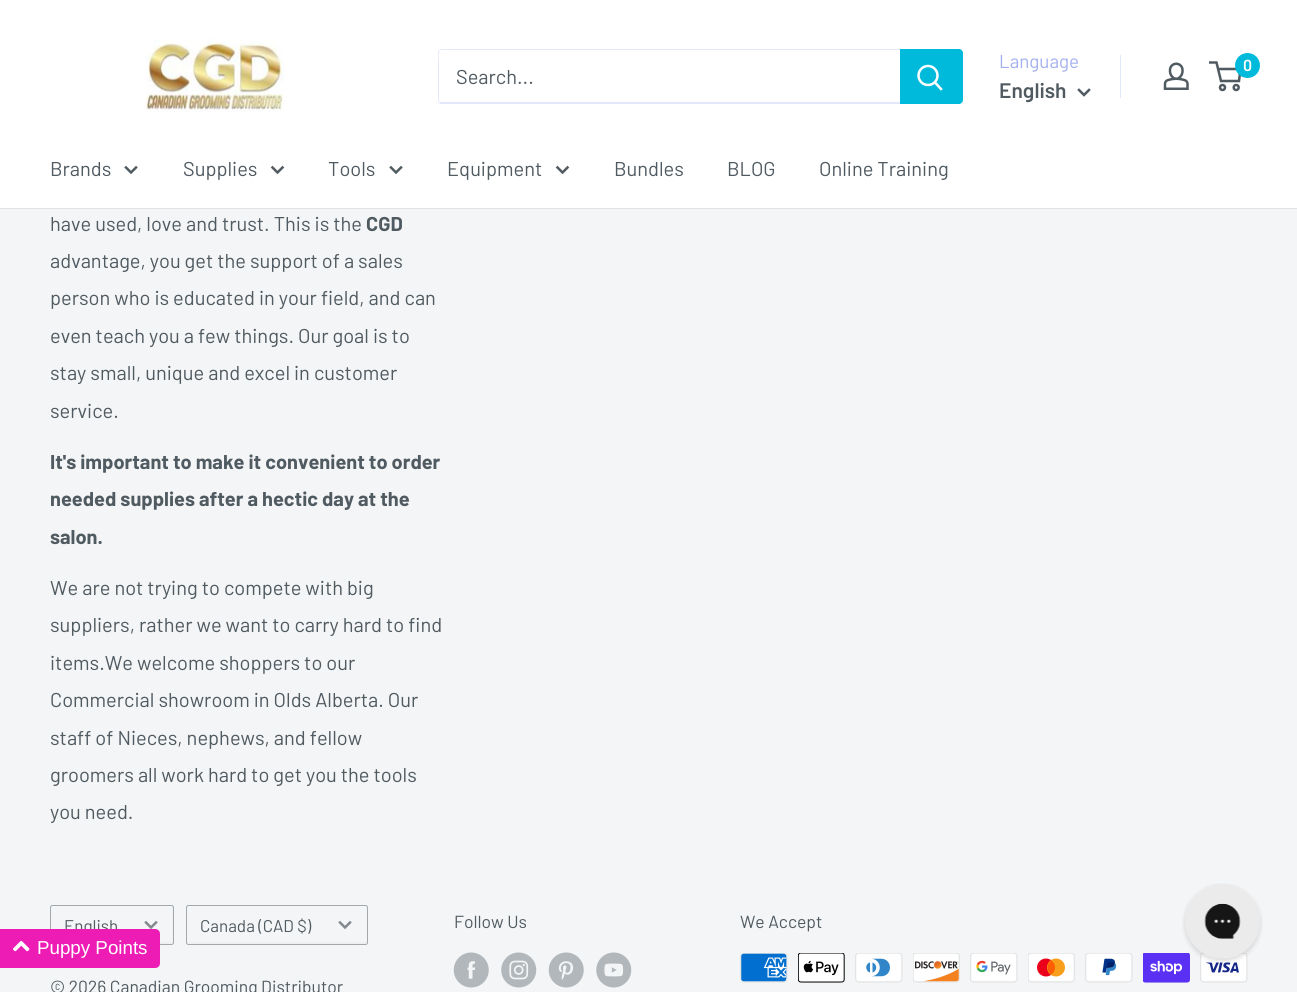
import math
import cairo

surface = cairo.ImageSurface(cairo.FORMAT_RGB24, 1297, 992)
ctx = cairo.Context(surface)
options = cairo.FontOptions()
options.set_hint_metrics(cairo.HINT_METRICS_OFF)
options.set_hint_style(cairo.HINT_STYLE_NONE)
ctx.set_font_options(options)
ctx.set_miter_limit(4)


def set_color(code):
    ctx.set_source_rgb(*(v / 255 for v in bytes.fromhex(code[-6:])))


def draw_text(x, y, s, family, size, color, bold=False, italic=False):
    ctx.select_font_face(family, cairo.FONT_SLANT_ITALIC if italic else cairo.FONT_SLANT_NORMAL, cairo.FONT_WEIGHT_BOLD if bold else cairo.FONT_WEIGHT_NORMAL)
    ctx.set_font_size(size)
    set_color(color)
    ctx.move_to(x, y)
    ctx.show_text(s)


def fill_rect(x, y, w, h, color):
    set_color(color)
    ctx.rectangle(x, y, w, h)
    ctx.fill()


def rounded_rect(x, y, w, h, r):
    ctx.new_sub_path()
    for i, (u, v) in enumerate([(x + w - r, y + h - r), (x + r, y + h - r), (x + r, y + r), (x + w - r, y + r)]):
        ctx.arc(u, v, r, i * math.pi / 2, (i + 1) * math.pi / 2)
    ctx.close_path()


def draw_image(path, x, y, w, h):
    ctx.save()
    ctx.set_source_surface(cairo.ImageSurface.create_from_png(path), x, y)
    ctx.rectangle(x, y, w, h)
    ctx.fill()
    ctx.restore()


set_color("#f3f5f6")
ctx.paint()
fill_rect(0, 0, 1297, 208, "#ffffff")
draw_image("assets/img1.png", 145, 39, 139, 73)
set_color("#e3e7fa")
ctx.new_path()
ctx.move_to(438, 102)
ctx.curve_to(439, 103, 440, 104, 442, 104)
ctx.line_to(959, 104)
ctx.curve_to(961, 104, 963, 102, 963, 100)
ctx.line_to(963, 53)
ctx.curve_to(963, 51, 962, 50, 961, 49)
ctx.line_to(961, 91)
ctx.curve_to(961, 93, 963, 102, 958, 102)
ctx.close_path()
ctx.fill()
ctx.set_source_rgba(0.639, 0.686, 0.937, 0.3)
ctx.new_path()
ctx.move_to(442, 50)
ctx.line_to(960, 50)
ctx.line_to(962, 51)
ctx.curve_to(962, 50, 960, 49, 959, 49)
ctx.line_to(442, 49)
ctx.curve_to(440, 49, 438, 51, 438, 53)
ctx.line_to(438, 100)
ctx.curve_to(438, 101, 439, 102, 439, 103)
ctx.line_to(439, 62)
ctx.curve_to(439, 61, 437, 50, 442, 50)
ctx.close_path()
ctx.fill()
draw_text(456, 84, "Search...", "Barlow", 20, "#505a61")
set_color("#00badb")
ctx.new_path()
ctx.move_to(900, 49)
ctx.line_to(959, 49)
ctx.curve_to(961, 49, 963, 51, 963, 53)
ctx.line_to(963, 100)
ctx.curve_to(963, 102, 961, 104, 959, 104)
ctx.line_to(900, 104)
ctx.close_path()
ctx.fill()
ctx.new_path()
ctx.move_to(941, 89)
ctx.line_to(935, 82.5)
set_color("#ffffff")
ctx.set_line_width(2.5)
ctx.set_line_cap(cairo.LINE_CAP_SQUARE)
ctx.stroke()
ctx.arc(928, 75.5, 9.5, 0, 2 * math.pi)
ctx.set_line_cap(cairo.LINE_CAP_BUTT)
ctx.stroke()
draw_text(999, 68, "Language", "Barlow", 18.75, "#a3afef")
draw_text(999, 98, "English", "Barlow SemiBold", 21, "#505a61")
ctx.new_path()
ctx.move_to(1089, 90)
ctx.line_to(1084, 95)
ctx.line_to(1079, 90)
ctx.set_line_cap(cairo.LINE_CAP_SQUARE)
ctx.stroke()
fill_rect(1120, 55, 1, 43, "#e3e7fa")
draw_image("assets/img2.png", 1163, 62, 26, 28)
ctx.arc(1222.5, 87.5, 2.5, 0, 2 * math.pi)
set_color("#505a61")
ctx.set_line_cap(cairo.LINE_CAP_BUTT)
ctx.stroke()
ctx.arc(1236.2, 87.5, 2.5, 0, 2 * math.pi)
ctx.stroke()
ctx.new_path()
ctx.move_to(1218, 69)
ctx.line_to(1240.5, 69)
ctx.line_to(1239, 81)
ctx.line_to(1221, 81)
ctx.line_to(1216.5, 62.5)
ctx.line_to(1209, 62.5)
ctx.stroke()
set_color("#00badb")
ctx.arc(1247.5, 65.5, 12.5, 0, 2 * math.pi)
ctx.fill()
draw_text(1243, 71, "0", "Barlow SemiBold", 16, "#ffffff")
fill_rect(0, 208, 1297, 1, "#e1e3e4")
draw_text(50, 176, "Brands", "Barlow", 20, "#505a61")
ctx.new_path()
ctx.move_to(136, 167.5)
ctx.line_to(131, 172.5)
ctx.line_to(126, 167.5)
ctx.set_line_cap(cairo.LINE_CAP_SQUARE)
ctx.stroke()
draw_text(183, 176, "Supplies", "Barlow", 20, "#505a61")
ctx.new_path()
ctx.move_to(282.5, 167.5)
ctx.line_to(277.5, 172.5)
ctx.line_to(272.5, 167.5)
ctx.stroke()
draw_text(328, 176, "Tools", "Barlow", 20, "#505a61")
ctx.new_path()
ctx.move_to(401, 167.5)
ctx.line_to(396, 172.5)
ctx.line_to(391, 167.5)
ctx.stroke()
draw_text(447, 176, "Equipment", "Barlow", 20, "#505a61")
ctx.new_path()
ctx.move_to(567.5, 167.5)
ctx.line_to(562.5, 172.5)
ctx.line_to(557.5, 167.5)
ctx.stroke()
draw_text(614, 176, "Bundles", "Barlow", 20, "#505a61")
draw_text(727, 176, "BLOG", "Barlow", 20, "#505a61")
draw_text(819, 176, "Online Training", "Barlow", 20, "#505a61")
draw_text(50, 231, "have used, love and trust. This is the", "Barlow", 20, "#505a61")
draw_text(366, 231, "CGD", "Barlow", 20, "#505a61", bold=True)
draw_text(50, 268, "advantage, you get the support of a sales", "Barlow", 20, "#505a61")
draw_text(50, 305, "person who is educated in your field, and can", "Barlow", 20, "#505a61")
draw_text(50, 343, "even teach you a few things. Our goal is to", "Barlow", 20, "#505a61")
draw_text(50, 380, "stay small, unique and excel in customer", "Barlow", 20, "#505a61")
draw_text(50, 418, "service.", "Barlow", 20, "#505a61")
draw_text(50, 469, "It's important to make it convenient to order", "Barlow", 20, "#505a61", bold=True)
draw_text(50, 506, "needed supplies after a hectic day at the", "Barlow", 20, "#505a61", bold=True)
draw_text(50, 544, "salon.", "Barlow", 20, "#505a61", bold=True)
draw_text(50, 595, "We are not trying to compete with big", "Barlow", 20, "#505a61")
draw_text(50, 632, "suppliers, rather we want to carry hard to find", "Barlow", 20, "#505a61")
draw_text(50, 670, "items.We welcome shoppers to our", "Barlow", 20, "#505a61")
draw_text(50, 707, "Commercial showroom in Olds Alberta. Our", "Barlow", 20, "#505a61")
draw_text(50, 745, "staff of Nieces, nephews, and fellow", "Barlow", 20, "#505a61")
draw_text(50, 782, "groomers all work hard to get you the tools", "Barlow", 20, "#505a61")
draw_text(50, 819, "you need.", "Barlow", 20, "#505a61")
set_color("#eef0f1")
ctx.new_path()
ctx.move_to(51, 941)
ctx.line_to(51, 943)
ctx.curve_to(51, 944, 51, 944, 52, 944)
ctx.line_to(172, 944)
ctx.curve_to(173, 944, 173, 944, 173, 943)
ctx.line_to(173, 907)
ctx.curve_to(173, 906, 173, 906, 172, 906)
ctx.line_to(172, 941)
ctx.curve_to(172, 942, 172, 942, 171, 942)
ctx.line_to(52, 942)
ctx.curve_to(52, 942, 51, 942, 51, 941)
ctx.close_path()
ctx.fill()
rounded_rect(50.5, 905.5, 123, 39, 2)
set_color("#a2a8ac")
ctx.set_line_width(1)
ctx.set_line_cap(cairo.LINE_CAP_BUTT)
ctx.stroke()
draw_text(64, 932, "English", "Barlow", 17, "#505a61")
ctx.new_path()
ctx.move_to(156, 922.5)
ctx.line_to(151, 927.5)
ctx.line_to(146, 922.5)
set_color("#81898e")
ctx.set_line_width(2.5)
ctx.set_line_cap(cairo.LINE_CAP_SQUARE)
ctx.stroke()
set_color("#eef0f1")
ctx.new_path()
ctx.move_to(188, 941)
ctx.curve_to(188, 942, 188, 944, 189, 944)
ctx.line_to(365, 944)
ctx.curve_to(366, 944, 366, 942, 366, 941)
ctx.curve_to(366, 942, 366, 942, 365, 942)
ctx.line_to(188, 942)
ctx.close_path()
ctx.fill()
rounded_rect(186.5, 905.5, 181, 39, 2)
set_color("#a2a8ac")
ctx.set_line_width(1)
ctx.set_line_cap(cairo.LINE_CAP_BUTT)
ctx.stroke()
draw_text(200, 932, "Canada (CAD $)", "Barlow", 17, "#505a61")
ctx.new_path()
ctx.move_to(350, 922.5)
ctx.line_to(345, 927.5)
ctx.line_to(340, 922.5)
set_color("#81898e")
ctx.set_line_width(2.5)
ctx.set_line_cap(cairo.LINE_CAP_SQUARE)
ctx.stroke()
draw_text(50, 993, "© 2026 Canadian Grooming Distributor", "Barlow", 17.5, "#505a61")
draw_text(454, 928, "Follow Us", "Barlow", 17.5, "#505a61")
draw_image("assets/img3.png", 453, 952, 36, 36)
draw_image("assets/img4.png", 501, 952, 36, 36)
draw_image("assets/img5.png", 548, 952, 36, 36)
draw_image("assets/img6.png", 596, 952, 36, 36)
draw_text(740, 928, "We Accept", "Barlow", 17.5, "#505a61")
draw_image("assets/img7.png", 740, 953, 48, 30)
draw_image("assets/img8.png", 798, 953, 47, 30)
draw_image("assets/img9.png", 855, 953, 48, 30)
draw_image("assets/img10.png", 913, 953, 47, 30)
draw_image("assets/img11.png", 970, 953, 48, 30)
draw_image("assets/img12.png", 1028, 953, 47, 30)
draw_image("assets/img13.png", 1085, 953, 48, 30)
draw_image("assets/img14.png", 1143, 953, 47, 30)
draw_image("assets/img15.png", 1200, 953, 48, 30)
draw_image("assets/img16.png", 1182, 883, 81, 81)
set_color("#ed1cb5")
ctx.new_path()
ctx.move_to(0, 929)
ctx.line_to(155, 929)
ctx.curve_to(158, 929, 160, 931, 160, 934)
ctx.line_to(160, 963)
ctx.curve_to(160, 966, 158, 968, 155, 968)
ctx.line_to(0, 968)
ctx.close_path()
ctx.fill()
draw_image("assets/img17.png", 13, 940, 17, 12)
draw_text(37, 954, "Puppy Points", "Liberation Sans", 18.75, "#ffffff")
surface.write_to_png("output.png")
